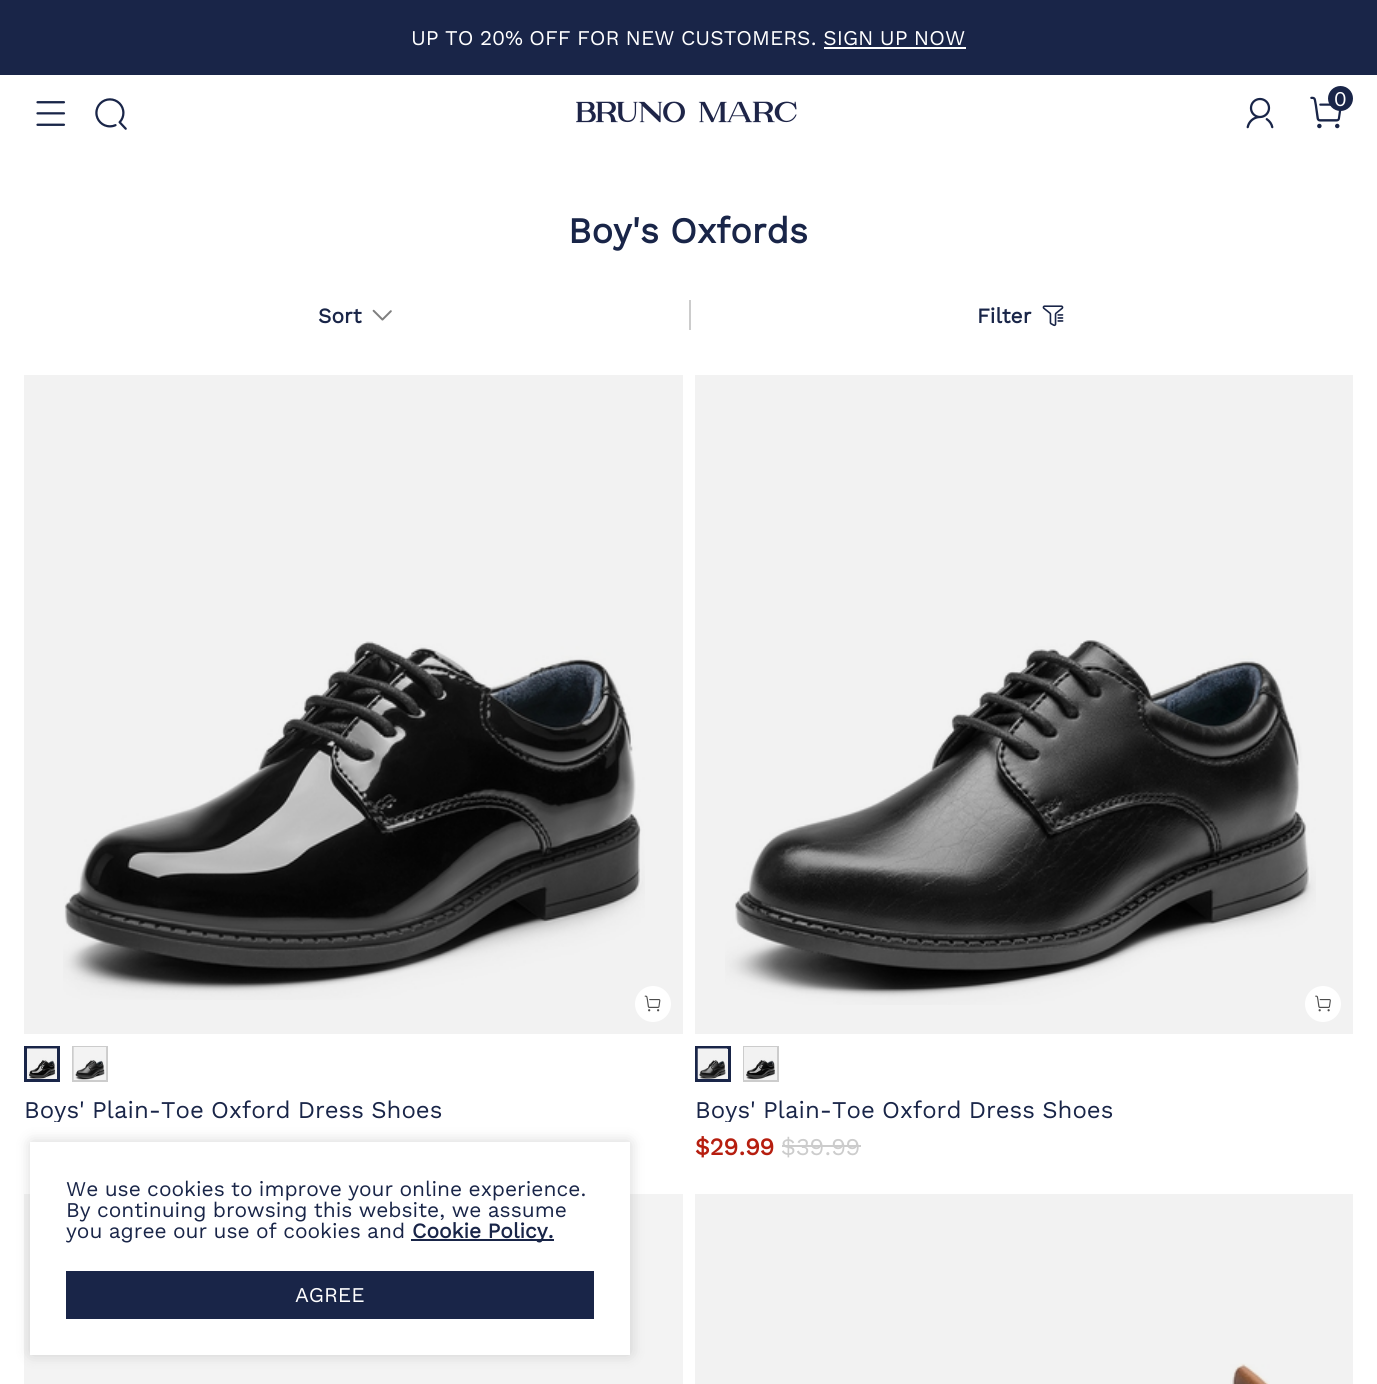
import math
import cairo

surface = cairo.ImageSurface(cairo.FORMAT_RGB24, 1377, 1384)
ctx = cairo.Context(surface)
options = cairo.FontOptions()
options.set_hint_metrics(cairo.HINT_METRICS_OFF)
options.set_hint_style(cairo.HINT_STYLE_NONE)
ctx.set_font_options(options)
ctx.set_miter_limit(4)


def set_color(code):
    ctx.set_source_rgb(*(v / 255 for v in bytes.fromhex(code[-6:])))


def draw_text(x, y, s, family, size, color, bold=False, italic=False):
    ctx.select_font_face(family, cairo.FONT_SLANT_ITALIC if italic else cairo.FONT_SLANT_NORMAL, cairo.FONT_WEIGHT_BOLD if bold else cairo.FONT_WEIGHT_NORMAL)
    ctx.set_font_size(size)
    set_color(color)
    ctx.move_to(x, y)
    ctx.show_text(s)


def fill_rect(x, y, w, h, color):
    set_color(color)
    ctx.rectangle(x, y, w, h)
    ctx.fill()


def rounded_rect(x, y, w, h, r):
    ctx.new_sub_path()
    for i, (u, v) in enumerate([(x + w - r, y + h - r), (x + r, y + h - r), (x + r, y + r), (x + w - r, y + r)]):
        ctx.arc(u, v, r, i * math.pi / 2, (i + 1) * math.pi / 2)
    ctx.close_path()


def draw_shadow(x, y, w, h, r, blur, alpha):
    ctx.push_group_with_content(cairo.CONTENT_ALPHA)
    ctx.set_operator(cairo.OPERATOR_SOURCE)
    for i in range(15, -16, -2):
        e = blur * i / 6
        if min(w, h) + 2 * e > 0:
            ctx.set_source_rgba(0, 0, 0, alpha * math.erfc((i - 1) / 8.5) / 2)
            rounded_rect(x - e, y - e, w + 2 * e, h + 2 * e, max(0, min(r + e + blur * .6, min(w, h) / 2 + e)))
            ctx.fill()
    ctx.mask(ctx.pop_group())


def draw_image(path, x, y, w, h):
    ctx.save()
    ctx.set_source_surface(cairo.ImageSurface.create_from_png(path), x, y)
    ctx.rectangle(x, y, w, h)
    ctx.fill()
    ctx.restore()


set_color("#ffffff")
ctx.paint()
fill_rect(695, 1194, 658, 190, "#f2f2f2")
fill_rect(695, 375, 658, 659, "#f2f2f2")
fill_rect(27, 1078, 30, 1, "#f2f2f2")
fill_rect(24, 375, 659, 659, "#f2f2f2")
fill_rect(0, 0, 1377, 75, "#192548")
draw_text(411, 45, "UP TO 20% OFF FOR NEW CUSTOMERS. SIGN UP NOW", "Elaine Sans", 21, "#ffffff")
fill_rect(824, 47, 142, 2, "#ffffff")
draw_image("assets/img1.png", 36, 101, 30, 25)
draw_image("assets/img2.png", 95, 98, 32, 32)
draw_image("assets/img3.png", 576, 101, 221, 22)
draw_image("assets/img4.png", 1246, 97, 28, 32)
draw_image("assets/img5.png", 1310, 96, 32, 33)
set_color("#192548")
ctx.arc(1340.5, 98.5, 12.5, 0, 2 * math.pi)
ctx.fill()
draw_text(1334, 106, "0", "Elaine Sans", 21, "#ffffff")
draw_text(568, 243, "Boy's Oxfords", "Elaine Sans", 36, "#192548", bold=True)
draw_text(318, 323, "Sort", "Elaine Sans", 21, "#192548", bold=True)
draw_image("assets/img6.png", 372, 309, 20, 12)
fill_rect(689, 300, 2, 30, "#cccccc")
draw_text(977, 323, "Filter", "Elaine Sans", 21, "#192548", bold=True)
draw_image("assets/img7.png", 1042, 305, 22, 22)
draw_image("assets/img8.png", 63, 641, 582, 359)
set_color("#ffffff")
ctx.arc(653, 1004, 18, 0, 2 * math.pi)
ctx.fill()
draw_image("assets/img9.png", 644, 995, 17, 17)
ctx.rectangle(25.5, 1047.5, 33, 33)
set_color("#192548")
ctx.set_line_width(3)
ctx.stroke()
draw_image("assets/img10.png", 27, 1048, 30, 31)
ctx.rectangle(73, 1047, 34, 34)
set_color("#cccccc")
ctx.set_line_width(2)
ctx.stroke()
draw_image("assets/img11.png", 73, 1047, 34, 33)
ctx.set_source_rgba(0, 0, 0, 0.05)
ctx.rectangle(74, 1047, 33, 33)
ctx.fill()
ctx.save()
ctx.rectangle(24, 1082, 659, 40)
ctx.clip()
draw_text(24, 1118, "Boys' Plain-Toe Oxford Dress Shoes", "Elaine Sans", 24, "#192548")
ctx.restore()
draw_image("assets/img12.png", 725, 640, 591, 365)
set_color("#ffffff")
ctx.arc(1323, 1004, 18, 0, 2 * math.pi)
ctx.fill()
draw_image("assets/img13.png", 1315, 995, 16, 17)
set_color("#f2f2f2")
ctx.rectangle(696.5, 1047.5, 33, 33)
ctx.fill_preserve()
set_color("#192548")
ctx.set_line_width(3)
ctx.stroke()
draw_image("assets/img14.png", 697, 1048, 31, 31)
ctx.rectangle(744, 1047, 34, 34)
set_color("#cccccc")
ctx.set_line_width(2)
ctx.stroke()
draw_image("assets/img15.png", 744, 1047, 33, 33)
ctx.save()
ctx.rectangle(695, 1082, 658, 40)
ctx.clip()
draw_text(695, 1118, "Boys' Plain-Toe Oxford Dress Shoes", "Elaine Sans", 24, "#192548")
ctx.restore()
draw_text(695, 1155, "$29.99", "Elaine Sans", 24, "#b61e0f", bold=True)
draw_text(781, 1155, "$39.99", "Elaine Sans", 24, "#cccccc")
fill_rect(782, 1145, 79, 2, "#cccccc")
fill_rect(24, 1194, 659, 190, "#f3f3f3")
draw_image("assets/img16.png", 1230, 1363, 40, 21)
set_color("#000000")
draw_shadow(32, 1143, 597, 210, 0, 7.5, 0.2)
fill_rect(30, 1142, 600, 213, "#ffffff")
draw_text(66, 1196, "We use cookies to improve your online experience.", "Elaine Sans", 21, "#192548")
draw_text(66, 1217, "By continuing browsing this website, we assume", "Elaine Sans", 21, "#192548")
draw_text(66, 1238, "you agree our use of cookies and", "Elaine Sans", 21, "#192548")
fill_rect(411, 1239, 143, 2, "#192548")
draw_text(412, 1238, "Cookie Policy.", "Elaine Sans", 21, "#192548", bold=True)
fill_rect(66, 1271, 528, 48, "#192548")
draw_text(295, 1302, "AGREE", "Elaine Sans", 21, "#ffffff")
surface.write_to_png("output.png")
